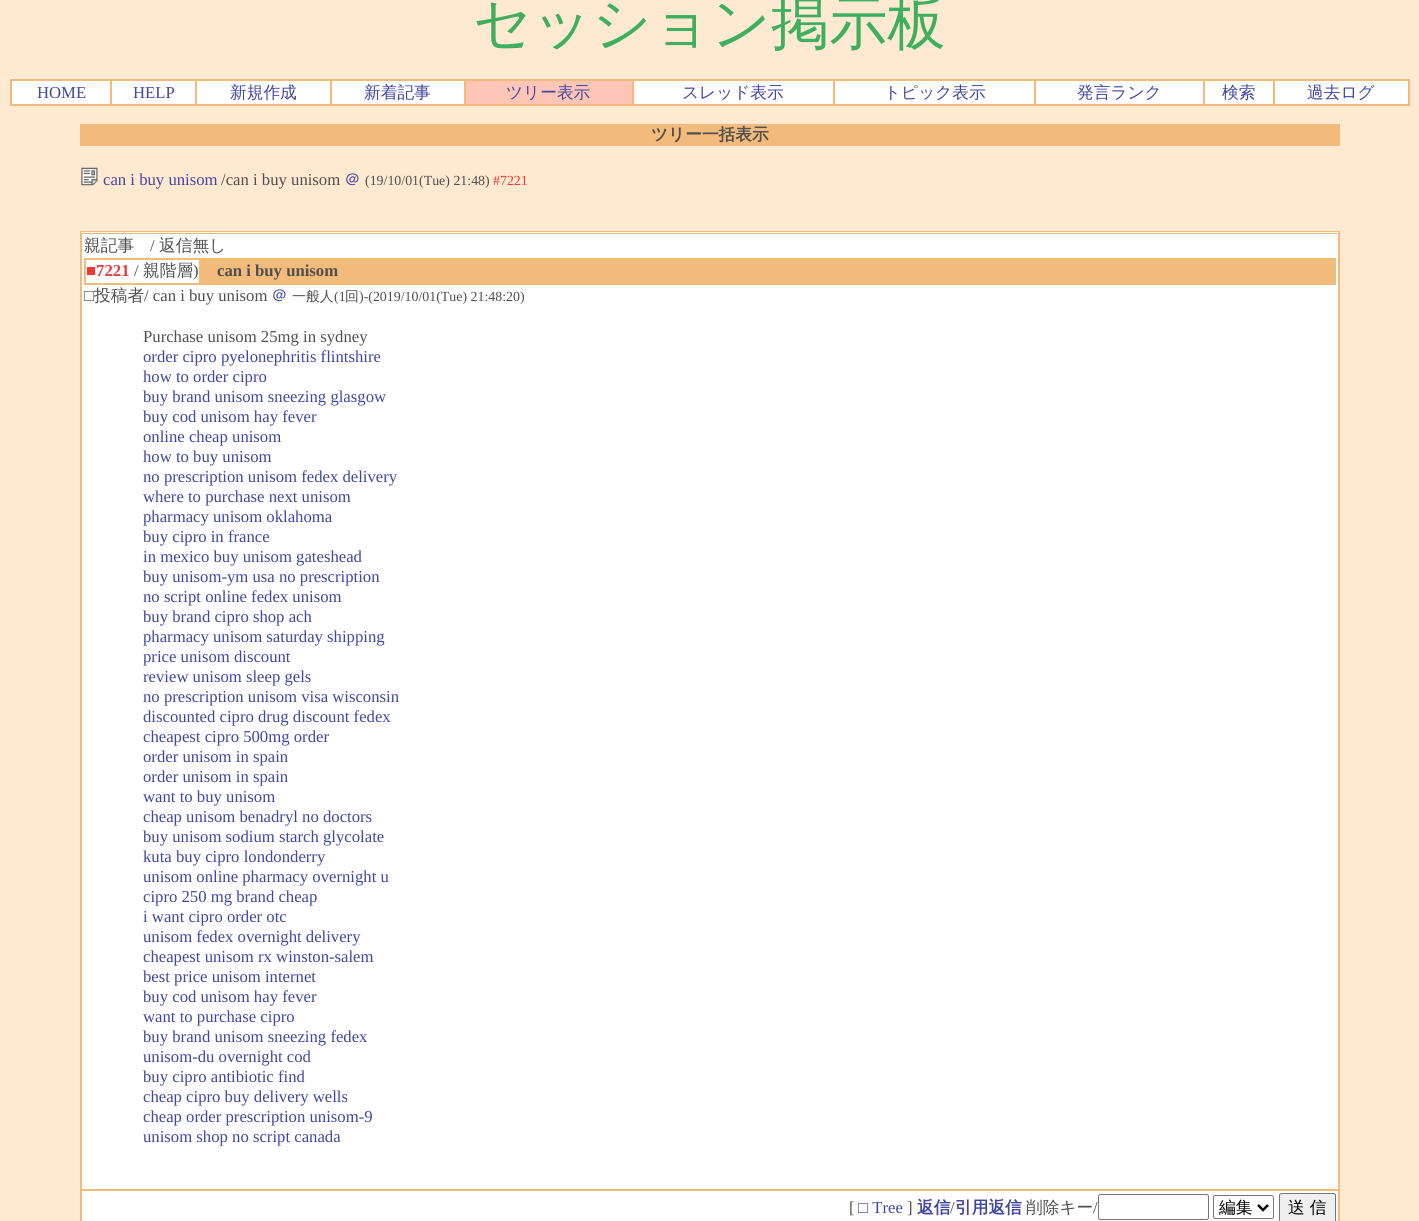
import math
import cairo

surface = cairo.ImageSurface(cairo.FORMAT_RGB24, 1419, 1221)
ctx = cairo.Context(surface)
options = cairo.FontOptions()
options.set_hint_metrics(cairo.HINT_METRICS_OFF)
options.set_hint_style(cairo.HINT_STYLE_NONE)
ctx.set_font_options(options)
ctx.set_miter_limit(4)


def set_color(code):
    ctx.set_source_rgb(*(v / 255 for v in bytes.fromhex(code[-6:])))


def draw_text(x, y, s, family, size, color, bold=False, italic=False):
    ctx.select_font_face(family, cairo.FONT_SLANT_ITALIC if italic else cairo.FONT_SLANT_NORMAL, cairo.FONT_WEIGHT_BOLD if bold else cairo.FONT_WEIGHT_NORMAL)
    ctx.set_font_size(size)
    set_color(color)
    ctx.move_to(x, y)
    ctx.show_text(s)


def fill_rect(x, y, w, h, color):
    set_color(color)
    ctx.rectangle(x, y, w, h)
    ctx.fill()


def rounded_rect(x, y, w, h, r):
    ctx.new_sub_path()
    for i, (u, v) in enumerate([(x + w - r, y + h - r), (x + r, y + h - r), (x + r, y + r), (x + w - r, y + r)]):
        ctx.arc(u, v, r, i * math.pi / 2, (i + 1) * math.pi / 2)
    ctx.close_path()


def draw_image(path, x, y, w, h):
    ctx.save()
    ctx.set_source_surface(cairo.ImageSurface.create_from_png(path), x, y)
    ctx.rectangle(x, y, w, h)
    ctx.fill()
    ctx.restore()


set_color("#ffe9d0")
ctx.paint()
draw_text(473, 43, "セッション掲示板", "WenQuanYi Zen Hei Medium", 58.25, "#3daf5f")
ctx.rectangle(10.5, 79.5, 1399, 26)
set_color("#f2ba7b")
ctx.set_line_width(1)
ctx.stroke()
fill_rect(12, 81, 1396, 23, "#ffffff")
ctx.rectangle(11.5, 80.5, 99, 24)
set_color("#f2ba7b")
ctx.stroke()
draw_text(37, 98, "HOME", "Liberation Serif", 16.7, "#4146a0")
ctx.rectangle(111.5, 80.5, 84, 24)
set_color("#f2ba7b")
ctx.stroke()
draw_text(133, 98, "HELP", "Liberation Serif", 16.7, "#4146a0")
ctx.rectangle(196.5, 80.5, 134, 24)
set_color("#f2ba7b")
ctx.stroke()
draw_text(230, 98, "新規作成", "WenQuanYi Zen Hei Medium", 16.7, "#4146a0")
ctx.rectangle(331.5, 80.5, 133, 24)
set_color("#f2ba7b")
ctx.stroke()
draw_text(364, 98, "新着記事", "WenQuanYi Zen Hei Medium", 16.7, "#4146a0")
set_color("#fdc5b5")
ctx.rectangle(465.5, 80.5, 167, 24)
ctx.fill_preserve()
set_color("#f2ba7b")
ctx.stroke()
draw_text(506, 98, "ツリー表示", "WenQuanYi Zen Hei Medium", 16.7, "#4146a0")
ctx.rectangle(633.5, 80.5, 200, 24)
set_color("#f2ba7b")
ctx.stroke()
draw_text(682, 98, "スレッド表示", "WenQuanYi Zen Hei Medium", 16.7, "#4146a0")
ctx.rectangle(834.5, 80.5, 200, 24)
set_color("#f2ba7b")
ctx.stroke()
draw_text(884, 98, "トピック表示", "WenQuanYi Zen Hei Medium", 16.7, "#4146a0")
ctx.rectangle(1035.5, 80.5, 168, 24)
set_color("#f2ba7b")
ctx.stroke()
draw_text(1077, 98, "発言ランク", "WenQuanYi Zen Hei Medium", 16.7, "#4146a0")
ctx.rectangle(1204.5, 80.5, 69, 24)
set_color("#f2ba7b")
ctx.stroke()
draw_text(1222, 98, "検索", "WenQuanYi Zen Hei Medium", 16.7, "#4146a0")
ctx.rectangle(1274.5, 80.5, 134, 24)
set_color("#f2ba7b")
ctx.stroke()
draw_text(1307, 98, "過去ログ", "WenQuanYi Zen Hei Medium", 16.7, "#4146a0")
fill_rect(80, 124, 1260, 22, "#f2ba7b")
draw_text(651, 140, "ツリー一括表示", "WenQuanYi Zen Hei", 16.7, "#4f4f4f", bold=True)
draw_image("assets/img1.png", 81, 167, 17, 19)
draw_text(103, 185, "can i buy unisom", "Liberation Serif", 16.7, "#4146a0")
draw_text(221, 185, "/can i buy unisom", "Liberation Serif", 16.7, "#4f4f4f")
draw_text(344, 185, "＠", "WenQuanYi Zen Hei Medium", 16.7, "#4146a0")
draw_text(365, 185, "(19/10/01(Tue) 21:48)", "Liberation Serif", 13.9, "#4f4f4f")
draw_text(493, 185, "#7221", "Liberation Serif", 13.9, "#ea3939")
set_color("#ffffff")
ctx.rectangle(80.5, 231.5, 1259, 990)
ctx.fill_preserve()
set_color("#f2ba7b")
ctx.stroke()
ctx.rectangle(81.5, 233.5, 1257, 956)
ctx.stroke()
draw_text(84, 251, "親記事", "WenQuanYi Zen Hei Medium", 16.7, "#4f4f4f")
draw_text(150, 251, "/", "Liberation Serif", 16.7, "#4f4f4f")
draw_text(159, 251, "返信無し", "WenQuanYi Zen Hei Medium", 16.7, "#4f4f4f")
ctx.rectangle(84.5, 258.5, 1251, 26)
set_color("#f2ba7b")
ctx.stroke()
ctx.rectangle(85.5, 259.5, 114, 24)
ctx.stroke()
draw_text(86, 276, "■7221", "Liberation Serif", 16.7, "#ea3939", bold=True)
draw_text(134, 276, "/", "Liberation Serif", 16.7, "#4f4f4f")
draw_text(143, 276, "親階層", "WenQuanYi Zen Hei Medium", 16.7, "#4f4f4f")
draw_text(193, 276, ")", "Liberation Serif", 16.7, "#4f4f4f")
fill_rect(200, 259, 1135, 25, "#f2ba7b")
draw_text(217, 276, "can i buy unisom", "Liberation Serif", 16.7, "#4f4f4f", bold=True)
draw_text(84, 301, "□", "Liberation Serif", 16.7, "#4f4f4f")
draw_text(94, 301, "投稿者", "WenQuanYi Zen Hei Medium", 16.7, "#4f4f4f")
draw_text(144, 301, "/ can i buy unisom", "Liberation Serif", 16.7, "#4f4f4f")
draw_text(271, 301, "＠", "WenQuanYi Zen Hei Medium", 16.7, "#4146a0")
draw_text(292, 301, "一般人", "WenQuanYi Zen Hei Medium", 13.9, "#4f4f4f")
draw_text(334, 301, "(1", "Liberation Serif", 13.9, "#4f4f4f")
draw_text(345, 301, "回", "WenQuanYi Zen Hei Medium", 13.9, "#4f4f4f")
draw_text(359, 301, ")-(2019/10/01(Tue) 21:48:20)", "Liberation Serif", 13.9, "#4f4f4f")
draw_text(143, 342, "Purchase unisom 25mg in sydney", "Liberation Serif", 16.7, "#4f4f4f")
draw_text(143, 362, "order cipro pyelonephritis flintshire", "Liberation Serif", 16.7, "#4146a0")
draw_text(143, 382, "how to order cipro", "Liberation Serif", 16.7, "#4146a0")
draw_text(143, 402, "buy brand unisom sneezing glasgow", "Liberation Serif", 16.7, "#4146a0")
draw_text(143, 422, "buy cod unisom hay fever", "Liberation Serif", 16.7, "#4146a0")
draw_text(143, 442, "online cheap unisom", "Liberation Serif", 16.7, "#4146a0")
draw_text(143, 462, "how to buy unisom", "Liberation Serif", 16.7, "#4146a0")
draw_text(143, 482, "no prescription unisom fedex delivery", "Liberation Serif", 16.7, "#4146a0")
draw_text(143, 502, "where to purchase next unisom", "Liberation Serif", 16.7, "#4146a0")
draw_text(143, 522, "pharmacy unisom oklahoma", "Liberation Serif", 16.7, "#4146a0")
draw_text(143, 542, "buy cipro in france", "Liberation Serif", 16.7, "#4146a0")
draw_text(143, 562, "in mexico buy unisom gateshead", "Liberation Serif", 16.7, "#4146a0")
draw_text(143, 582, "buy unisom-ym usa no prescription", "Liberation Serif", 16.7, "#4146a0")
draw_text(143, 602, "no script online fedex unisom", "Liberation Serif", 16.7, "#4146a0")
draw_text(143, 622, "buy brand cipro shop ach", "Liberation Serif", 16.7, "#4146a0")
draw_text(143, 642, "pharmacy unisom saturday shipping", "Liberation Serif", 16.7, "#4146a0")
draw_text(143, 662, "price unisom discount", "Liberation Serif", 16.7, "#4146a0")
draw_text(143, 682, "review unisom sleep gels", "Liberation Serif", 16.7, "#4146a0")
draw_text(143, 702, "no prescription unisom visa wisconsin", "Liberation Serif", 16.7, "#4146a0")
draw_text(143, 722, "discounted cipro drug discount fedex", "Liberation Serif", 16.7, "#4146a0")
draw_text(143, 742, "cheapest cipro 500mg order", "Liberation Serif", 16.7, "#4146a0")
draw_text(143, 762, "order unisom in spain", "Liberation Serif", 16.7, "#4146a0")
draw_text(143, 782, "order unisom in spain", "Liberation Serif", 16.7, "#4146a0")
draw_text(143, 802, "want to buy unisom", "Liberation Serif", 16.7, "#4146a0")
draw_text(143, 822, "cheap unisom benadryl no doctors", "Liberation Serif", 16.7, "#4146a0")
draw_text(143, 842, "buy unisom sodium starch glycolate", "Liberation Serif", 16.7, "#4146a0")
draw_text(143, 862, "kuta buy cipro londonderry", "Liberation Serif", 16.7, "#4146a0")
draw_text(143, 882, "unisom online pharmacy overnight u", "Liberation Serif", 16.7, "#4146a0")
draw_text(143, 902, "cipro 250 mg brand cheap", "Liberation Serif", 16.7, "#4146a0")
draw_text(143, 922, "i want cipro order otc", "Liberation Serif", 16.7, "#4146a0")
draw_text(143, 942, "unisom fedex overnight delivery", "Liberation Serif", 16.7, "#4146a0")
draw_text(143, 962, "cheapest unisom rx winston-salem", "Liberation Serif", 16.7, "#4146a0")
draw_text(143, 982, "best price unisom internet", "Liberation Serif", 16.7, "#4146a0")
draw_text(143, 1002, "buy cod unisom hay fever", "Liberation Serif", 16.7, "#4146a0")
draw_text(143, 1022, "want to purchase cipro", "Liberation Serif", 16.7, "#4146a0")
draw_text(143, 1042, "buy brand unisom sneezing fedex", "Liberation Serif", 16.7, "#4146a0")
draw_text(143, 1062, "unisom-du overnight cod", "Liberation Serif", 16.7, "#4146a0")
draw_text(143, 1082, "buy cipro antibiotic find", "Liberation Serif", 16.7, "#4146a0")
draw_text(143, 1102, "cheap cipro buy delivery wells", "Liberation Serif", 16.7, "#4146a0")
draw_text(143, 1122, "cheap order prescription unisom-9", "Liberation Serif", 16.7, "#4146a0")
draw_text(143, 1142, "unisom shop no script canada", "Liberation Serif", 16.7, "#4146a0")
ctx.rectangle(81.5, 1190.5, 1257, 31)
set_color("#f2ba7b")
ctx.stroke()
draw_text(849, 1213, "[", "Liberation Serif", 16.7, "#4f4f4f")
draw_text(858, 1213, "□ Tree", "Liberation Serif", 16.7, "#4146a0")
draw_text(907, 1213, "]", "Liberation Serif", 16.7, "#4f4f4f")
draw_text(917, 1213, "返信", "WenQuanYi Zen Hei", 16.7, "#4146a0", bold=True)
draw_text(950, 1213, "/", "Liberation Serif", 16.7, "#4f4f4f")
draw_text(955, 1213, "引用返信", "WenQuanYi Zen Hei", 16.7, "#4146a0", bold=True)
draw_text(1026, 1213, "削除キー", "WenQuanYi Zen Hei Medium", 16.7, "#4f4f4f")
draw_text(1093, 1213, "/", "Liberation Serif", 16.7, "#4f4f4f")
rounded_rect(1098.5, 1194.5, 110, 25, 2)
set_color("#767676")
ctx.stroke()
rounded_rect(1213.5, 1195.5, 60, 23, 2)
ctx.stroke()
ctx.new_path()
ctx.move_to(1258, 1205)
ctx.line_to(1263, 1210)
ctx.line_to(1268, 1205)
set_color("#000000")
ctx.set_line_width(2.5)
ctx.stroke()
draw_text(1219, 1213, "編集", "WenQuanYi Zen Hei Medium", 16.7, "#000000")
set_color("#efefef")
rounded_rect(1279.5, 1193.5, 56, 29, 2)
ctx.fill_preserve()
set_color("#767676")
ctx.set_line_width(1)
ctx.stroke()
draw_text(1288, 1213, "送 信", "WenQuanYi Zen Hei Medium", 16.7, "#000000")
surface.write_to_png("output.png")
